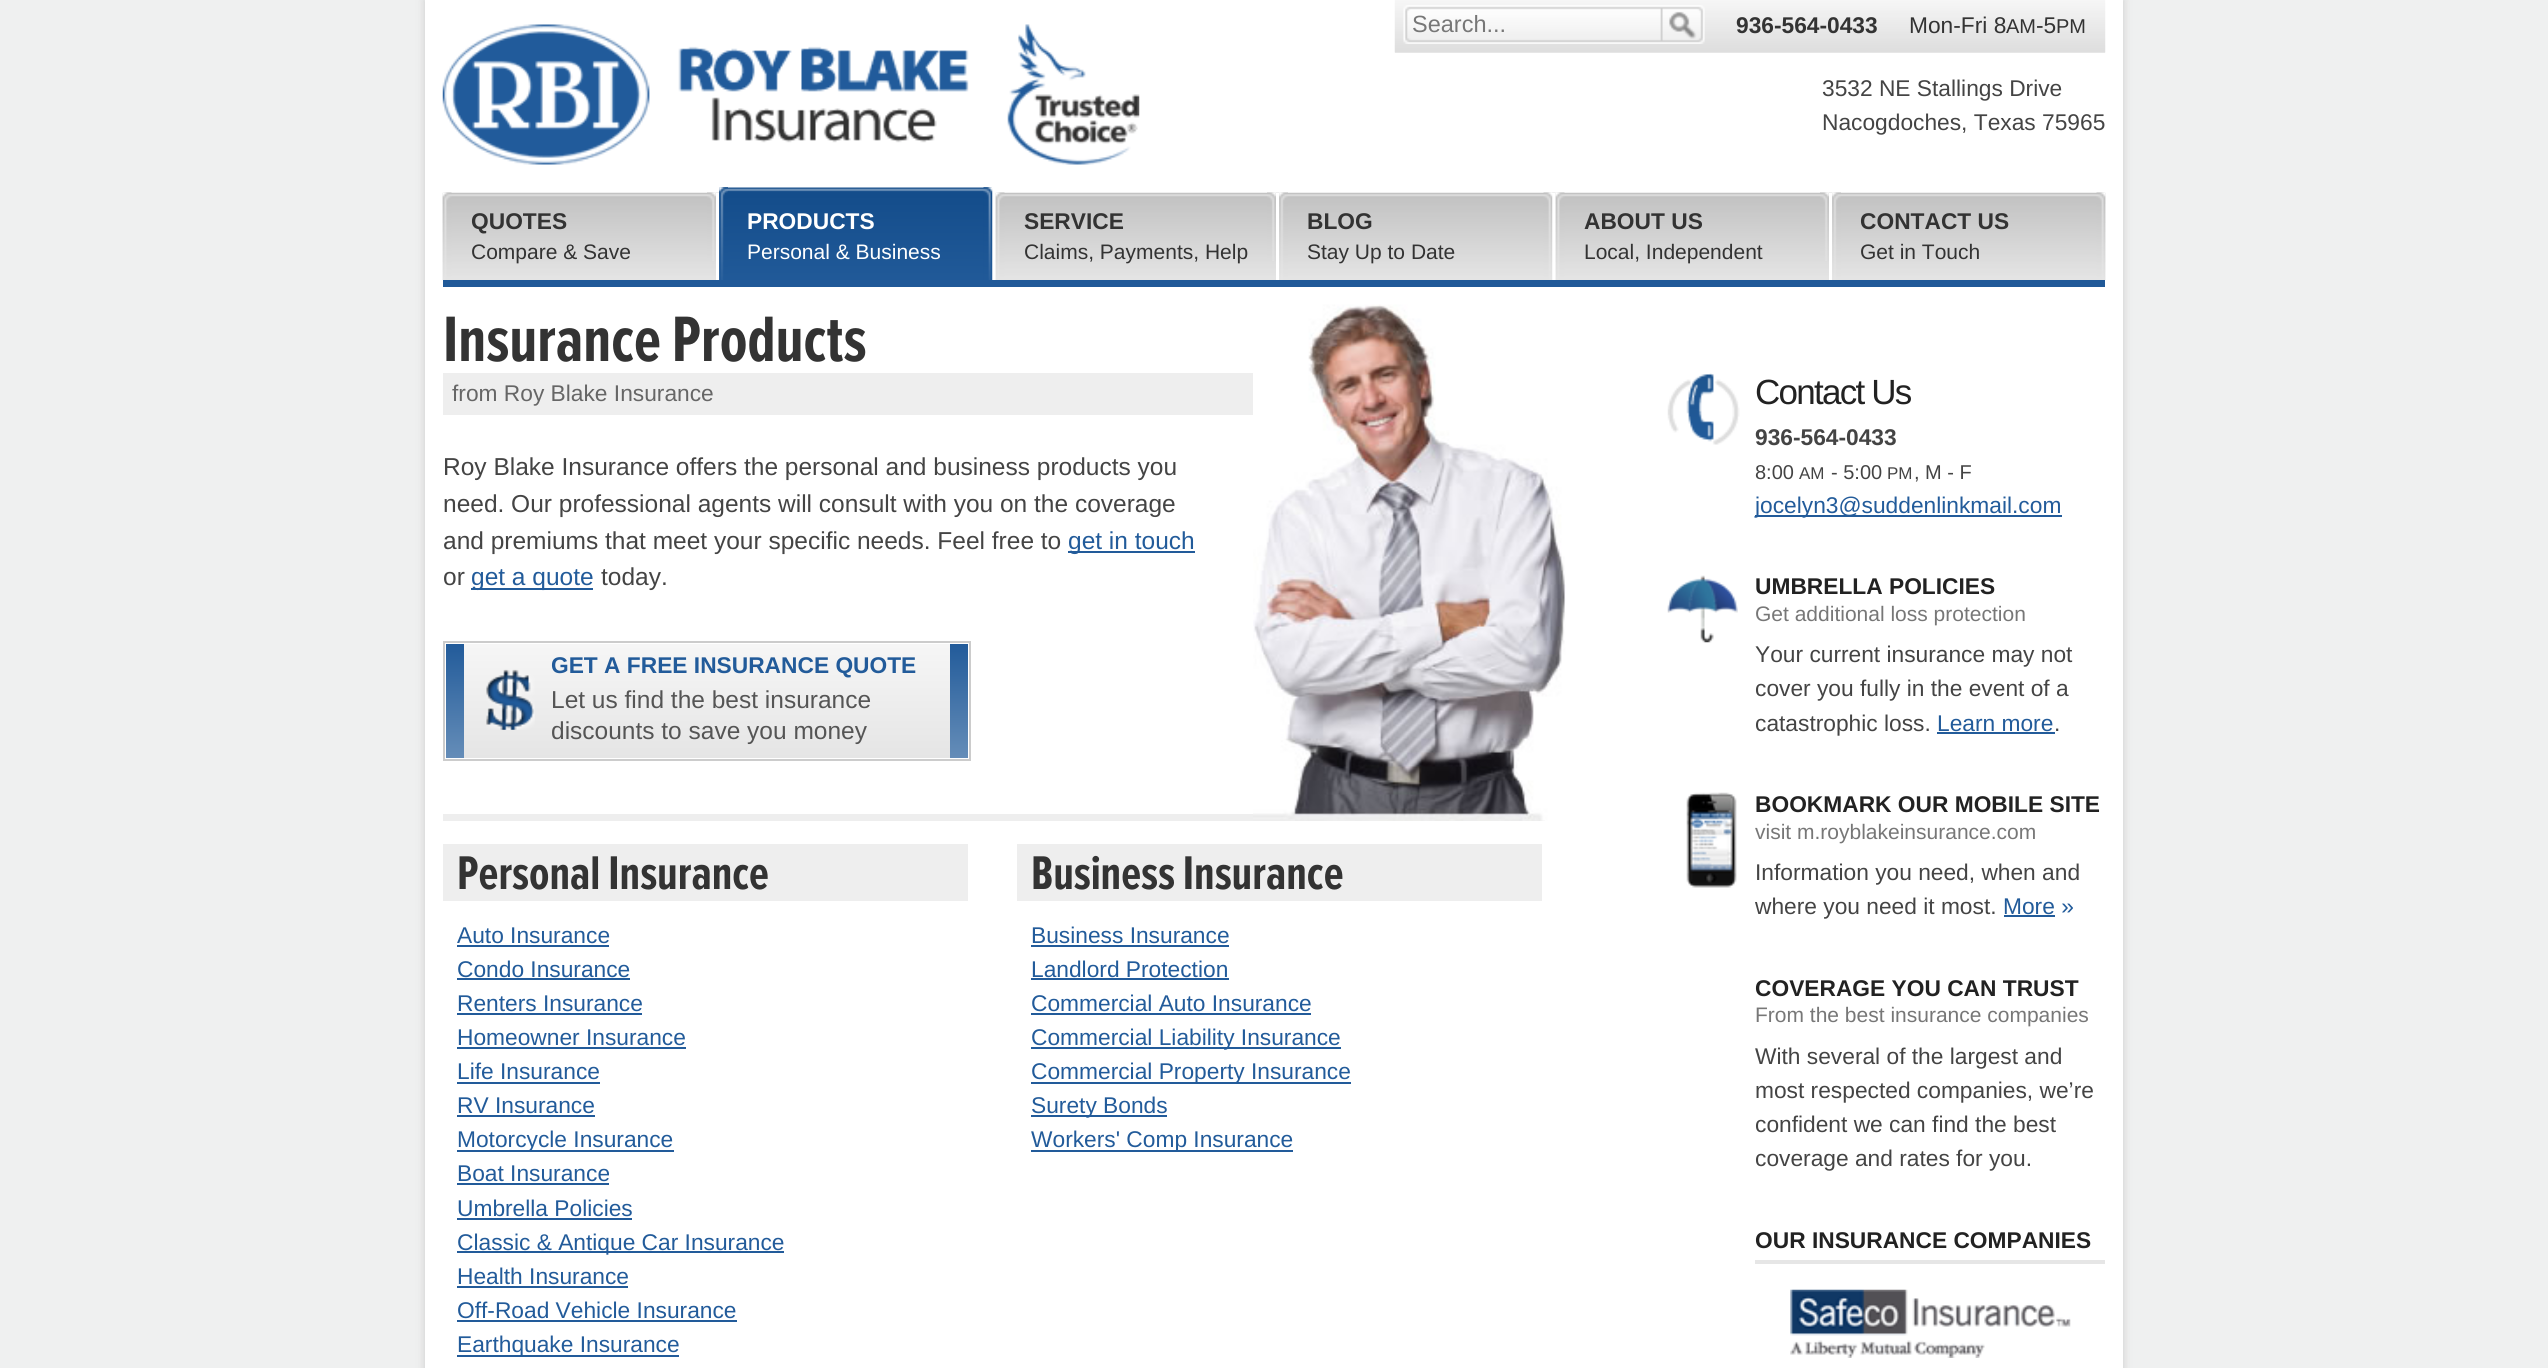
import math
import cairo

surface = cairo.ImageSurface(cairo.FORMAT_RGB24, 2548, 1368)
ctx = cairo.Context(surface)
options = cairo.FontOptions()
options.set_hint_metrics(cairo.HINT_METRICS_OFF)
options.set_hint_style(cairo.HINT_STYLE_NONE)
ctx.set_font_options(options)
ctx.set_miter_limit(4)


def set_color(code):
    ctx.set_source_rgb(*(v / 255 for v in bytes.fromhex(code[-6:])))


def draw_text(x, y, s, family, size, color, bold=False, italic=False):
    ctx.select_font_face(family, cairo.FONT_SLANT_ITALIC if italic else cairo.FONT_SLANT_NORMAL, cairo.FONT_WEIGHT_BOLD if bold else cairo.FONT_WEIGHT_NORMAL)
    ctx.set_font_size(size)
    set_color(color)
    ctx.move_to(x, y)
    ctx.show_text(s)


def draw_spaced(x, y, s, letter, word):
    ctx.move_to(x, y)
    for ch in s:
        ctx.show_text(ch)
        ctx.rel_move_to(letter + word * (ch == ' '), 0)


def fill_rect(x, y, w, h, color):
    set_color(color)
    ctx.rectangle(x, y, w, h)
    ctx.fill()


def rounded_rect(x, y, w, h, r):
    ctx.new_sub_path()
    for i, (u, v) in enumerate([(x + w - r, y + h - r), (x + r, y + h - r), (x + r, y + r), (x + w - r, y + r)]):
        ctx.arc(u, v, r, i * math.pi / 2, (i + 1) * math.pi / 2)
    ctx.close_path()


def draw_shadow(x, y, w, h, r, blur, alpha):
    ctx.push_group_with_content(cairo.CONTENT_ALPHA)
    ctx.set_operator(cairo.OPERATOR_SOURCE)
    for i in range(15, -16, -2):
        e = blur * i / 6
        if min(w, h) + 2 * e > 0:
            ctx.set_source_rgba(0, 0, 0, alpha * math.erfc((i - 1) / 8.5) / 2)
            rounded_rect(x - e, y - e, w + 2 * e, h + 2 * e, max(0, min(r + e + blur * .6, min(w, h) / 2 + e)))
            ctx.fill()
    ctx.mask(ctx.pop_group())


def draw_image(path, x, y, w, h):
    ctx.save()
    ctx.set_source_surface(cairo.ImageSurface.create_from_png(path), x, y)
    ctx.rectangle(x, y, w, h)
    ctx.fill()
    ctx.restore()


set_color("#eff0f0")
ctx.paint()
set_color("#cccccc")
draw_shadow(443, 0, 1680, 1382, 0, 4.5, 1)
draw_shadow(425, 0, 1680, 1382, 0, 4.5, 1)
set_color("#ffffff")
ctx.new_path()
ctx.move_to(443, 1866)
ctx.line_to(2123, 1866)
ctx.line_to(2123, 0)
ctx.line_to(2114, 0)
ctx.line_to(2114, 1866)
ctx.close_path()
ctx.fill()
ctx.new_path()
ctx.move_to(425, 0)
ctx.line_to(425, 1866)
ctx.line_to(2105, 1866)
ctx.line_to(434, 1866)
ctx.line_to(434, 0)
ctx.close_path()
ctx.fill()
fill_rect(434, 0, 1680, 1368, "#ffffff")
draw_image("assets/img1.png", 442, 24, 698, 141)
fill_rect(1395, 52, 710, 1, "#eeeeee")
draw_image("assets/img2.png", 1394, 0, 712, 53)
draw_image("assets/img3.png", 1403, 5, 302, 39)
draw_text(1412, 32, "Search...", "Liberation Sans", 23.5, "#777777")
draw_text(1736, 33, "936-564-0433", "Liberation Sans", 22.75, "#333333", bold=True)
draw_text(1909, 33, "Mon-Fri 8", "Liberation Sans", 22.75, "#333333")
draw_text(2006, 33, "AM", "Liberation Sans", 20, "#333333")
draw_text(2036, 33, "-5", "Liberation Sans", 22.75, "#333333")
draw_text(2056, 33, "PM", "Liberation Sans", 20, "#333333")
draw_text(1822, 96, "3532 NE Stallings Drive", "Liberation Sans", 22.75, "#444444")
draw_text(1822, 130, "Nacogdoches, Texas 75965", "Liberation Sans", 22.75, "#444444")
draw_image("assets/img4.png", 442, 192, 278, 88)
fill_rect(716, 193, 4, 87, "#ffffff")
draw_image("assets/img5.png", 442, 192, 10, 88)
draw_text(471, 229, "QUOTES", "Liberation Sans", 22.75, "#333333", bold=True)
draw_image("assets/img6.png", 707, 192, 9, 69)
draw_text(471, 259, "Compare & Save", "Liberation Sans", 21, "#333333")
draw_image("assets/img7.png", 719, 187, 273, 93)
draw_image("assets/img8.png", 719, 187, 9, 93)
draw_text(747, 229, "PRODUCTS", "Liberation Sans", 22.75, "#ffffff", bold=True)
draw_image("assets/img9.png", 983, 187, 10, 93)
draw_text(747, 259, "Personal & Business", "Liberation Sans", 21, "#ffffff")
draw_image("assets/img10.png", 995, 192, 285, 88)
fill_rect(1276, 193, 4, 87, "#ffffff")
draw_image("assets/img11.png", 995, 192, 10, 88)
draw_text(1024, 229, "SERVICE", "Liberation Sans", 22.75, "#333333", bold=True)
draw_image("assets/img12.png", 1267, 192, 9, 69)
draw_text(1024, 259, "Claims, Payments, Help", "Liberation Sans", 21, "#333333")
draw_image("assets/img13.png", 1279, 192, 277, 88)
fill_rect(1552, 193, 4, 87, "#ffffff")
draw_image("assets/img14.png", 1279, 192, 9, 88)
draw_text(1307, 229, "BLOG", "Liberation Sans", 22.75, "#333333", bold=True)
draw_image("assets/img15.png", 1543, 192, 10, 88)
draw_text(1307, 259, "Stay Up to Date", "Liberation Sans", 21, "#333333")
draw_image("assets/img16.png", 1555, 192, 278, 88)
fill_rect(1829, 193, 4, 87, "#ffffff")
draw_image("assets/img17.png", 1555, 192, 10, 88)
draw_text(1584, 229, "ABOUT US", "Liberation Sans", 22.75, "#333333", bold=True)
draw_image("assets/img6.png", 1820, 192, 9, 69)
draw_text(1584, 259, "Local, Independent", "Liberation Sans", 21, "#333333")
draw_image("assets/img18.png", 1832, 192, 274, 88)
draw_image("assets/img19.png", 1832, 192, 9, 88)
draw_text(1860, 229, "CONTACT US", "Liberation Sans", 22.75, "#333333", bold=True)
draw_image("assets/img20.png", 2096, 192, 10, 88)
draw_text(1860, 259, "Get in Touch", "Liberation Sans", 21, "#333333")
fill_rect(443, 280, 1662, 7, "#205998")
draw_text(443, 361, "Insurance Products", "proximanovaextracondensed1", 66.5, "#333333", bold=True)
fill_rect(443, 373, 810, 42, "#eeeeee")
draw_text(452, 401, "from Roy Blake Insurance", "Liberation Sans", 22.75, "#666666")
fill_rect(443, 814, 1102, 7, "#eeeeee")
draw_text(443, 475, "Roy Blake Insurance offers the personal and business products you", "Liberation Sans", 24.5, "#444444")
draw_text(443, 512, "need. Our professional agents will consult with you on the coverage", "Liberation Sans", 24.5, "#444444")
draw_text(443, 549, "and premiums that meet your specific needs. Feel free to", "Liberation Sans", 24.5, "#444444")
fill_rect(1068, 551, 127, 2, "#225b9a")
draw_text(1068, 549, "get in touch", "Liberation Sans", 24.5, "#225b9a")
draw_text(443, 585, "or", "Liberation Sans", 24.5, "#444444")
fill_rect(471, 588, 122, 2, "#225b9a")
draw_text(471, 585, "get a quote", "Liberation Sans", 24.5, "#225b9a")
draw_text(601, 585, "today.", "Liberation Sans", 24.5, "#444444")
draw_image("assets/img21.png", 1253, 304, 313, 517)
ctx.rectangle(444, 642, 526, 118)
set_color("#cccccc")
ctx.stroke()
gradient = cairo.LinearGradient(446, 644, 446, 758)
gradient.add_color_stop_rgba(0, 0.965, 0.965, 0.965, 1)
gradient.add_color_stop_rgba(1, 0.898, 0.898, 0.898, 1)
ctx.set_source(gradient)
ctx.rectangle(464, 644, 486, 114)
ctx.fill()
gradient = cairo.LinearGradient(446, 644, 446, 758)
gradient.add_color_stop_rgba(0, 0.133, 0.357, 0.604, 1)
gradient.add_color_stop_rgba(1, 0.396, 0.553, 0.722, 1)
ctx.set_source(gradient)
ctx.rectangle(446, 644, 18, 114)
ctx.fill()
draw_image("assets/img22.png", 486, 669, 49, 61)
draw_text(551, 673, "GET A FREE INSURANCE QUOTE", "Liberation Sans", 22.75, "#225b9a", bold=True)
gradient = cairo.LinearGradient(950, 644, 950, 758)
gradient.add_color_stop_rgba(0, 0.133, 0.357, 0.604, 1)
gradient.add_color_stop_rgba(1, 0.396, 0.553, 0.722, 1)
ctx.set_source(gradient)
ctx.rectangle(950, 644, 18, 114)
ctx.fill()
draw_text(551, 708, "Let us find the best insurance", "Liberation Sans", 24.5, "#555555")
draw_text(551, 739, "discounts to save you money", "Liberation Sans", 24.5, "#555555")
fill_rect(443, 844, 525, 57, "#eeeeee")
draw_text(457, 889, "Personal Insurance", "proximanovaextracondensed1", 49, "#333333", bold=True)
draw_text(457, 943, "Auto Insurance", "Liberation Sans", 22.75, "#225b9a")
fill_rect(457, 945, 152, 2, "#225b9a")
draw_text(457, 977, "Condo Insurance", "Liberation Sans", 22.75, "#225b9a")
fill_rect(457, 978, 173, 2, "#225b9a")
draw_text(457, 1011, "Renters Insurance", "Liberation Sans", 22.75, "#225b9a")
fill_rect(457, 1013, 185, 2, "#225b9a")
draw_text(457, 1045, "Homeowner Insurance", "Liberation Sans", 22.75, "#225b9a")
fill_rect(457, 1047, 229, 2, "#225b9a")
draw_text(457, 1079, "Life Insurance", "Liberation Sans", 22.75, "#225b9a")
fill_rect(457, 1082, 143, 2, "#225b9a")
draw_text(457, 1113, "RV Insurance", "Liberation Sans", 22.75, "#225b9a")
fill_rect(457, 1115, 138, 2, "#225b9a")
fill_rect(457, 1150, 217, 2, "#225b9a")
draw_text(457, 1147, "Motorcycle Insurance", "Liberation Sans", 22.75, "#225b9a")
draw_text(457, 1181, "Boat Insurance", "Liberation Sans", 22.75, "#225b9a")
fill_rect(457, 1183, 152, 2, "#225b9a")
draw_text(457, 1216, "Umbrella Policies", "Liberation Sans", 22.75, "#225b9a")
fill_rect(457, 1218, 175, 2, "#225b9a")
fill_rect(457, 1251, 327, 2, "#225b9a")
draw_text(457, 1250, "Classic & Antique Car Insurance", "Liberation Sans", 22.75, "#225b9a")
draw_text(457, 1284, "Health Insurance", "Liberation Sans", 22.75, "#225b9a")
fill_rect(457, 1286, 171, 2, "#225b9a")
draw_text(457, 1318, "Off-Road Vehicle Insurance", "Liberation Sans", 22.75, "#225b9a")
fill_rect(457, 1320, 280, 2, "#225b9a")
fill_rect(457, 1355, 222, 2, "#225b9a")
draw_text(457, 1352, "Earthquake Insurance", "Liberation Sans", 22.75, "#225b9a")
fill_rect(1017, 844, 525, 57, "#eeeeee")
draw_text(1031, 889, "Business Insurance", "proximanovaextracondensed1", 49, "#333333", bold=True)
draw_text(1031, 943, "Business Insurance", "Liberation Sans", 22.75, "#225b9a")
fill_rect(1031, 945, 198, 2, "#225b9a")
draw_text(1031, 977, "Landlord Protection", "Liberation Sans", 22.75, "#225b9a")
fill_rect(1031, 978, 198, 2, "#225b9a")
draw_text(1031, 1011, "Commercial Auto Insurance", "Liberation Sans", 22.75, "#225b9a")
fill_rect(1031, 1013, 280, 2, "#225b9a")
fill_rect(1031, 1047, 310, 2, "#225b9a")
draw_text(1031, 1045, "Commercial Liability Insurance", "Liberation Sans", 22.75, "#225b9a")
fill_rect(1031, 1082, 320, 2, "#225b9a")
draw_text(1031, 1079, "Commercial Property Insurance", "Liberation Sans", 22.75, "#225b9a")
fill_rect(1031, 1115, 136, 2, "#225b9a")
draw_text(1031, 1113, "Surety Bonds", "Liberation Sans", 22.75, "#225b9a")
fill_rect(1031, 1150, 262, 2, "#225b9a")
draw_text(1031, 1147, "Workers' Comp Insurance", "Liberation Sans", 22.75, "#225b9a")
draw_image("assets/img23.png", 1667, 373, 73, 72)
ctx.set_font_size(35)
set_color("#222222")
draw_spaced(1755, 404, "Contact Us", -1.75, 0)
draw_text(1755, 445, "936-564-0433", "Liberation Sans", 22.75, "#444444", bold=True)
draw_text(1755, 479, "8:00", "Liberation Sans", 20, "#444444")
draw_text(1799, 479, "AM", "Liberation Sans", 17, "#444444")
draw_text(1831, 479, "- 5:00", "Liberation Sans", 20, "#444444")
draw_text(1887, 479, "PM", "Liberation Sans", 17, "#444444")
draw_text(1914, 479, ", M - F", "Liberation Sans", 20, "#444444")
fill_rect(1755, 515, 307, 2, "#225b9a")
draw_text(1755, 513, "jocelyn3@suddenlinkmail.com", "Liberation Sans", 22.75, "#225b9a")
draw_image("assets/img24.png", 1667, 575, 71, 68)
draw_text(1755, 594, "UMBRELLA POLICIES", "Liberation Sans", 22.75, "#222222", bold=True)
draw_text(1755, 621, "Get additional loss protection", "Liberation Sans", 21, "#777777")
draw_text(1755, 662, "Your current insurance may not", "Liberation Sans", 22.75, "#444444")
draw_text(1755, 696, "cover you fully in the event of a", "Liberation Sans", 22.75, "#444444")
draw_text(1755, 731, "catastrophic loss.", "Liberation Sans", 22.75, "#444444")
draw_text(1937, 731, "Learn more", "Liberation Sans", 22.75, "#225b9a")
fill_rect(1937, 732, 118, 2, "#225b9a")
draw_text(2054, 731, ".", "Liberation Sans", 22.75, "#444444")
draw_image("assets/img25.png", 1686, 792, 51, 96)
draw_text(1755, 812, "BOOKMARK OUR MOBILE SITE", "Liberation Sans", 22.75, "#222222", bold=True)
draw_text(1755, 839, "visit m.royblakeinsurance.com", "Liberation Sans", 21, "#777777")
draw_text(1755, 880, "Information you need, when and", "Liberation Sans", 22.75, "#444444")
draw_text(1755, 914, "where you need it most.", "Liberation Sans", 22.75, "#444444")
draw_text(2003, 914, "More »", "Liberation Sans", 22.75, "#225b9a")
fill_rect(2004, 915, 51, 2, "#225b9a")
draw_text(1755, 996, "COVERAGE YOU CAN TRUST", "Liberation Sans", 22.75, "#222222", bold=True)
draw_text(1755, 1022, "From the best insurance companies", "Liberation Sans", 21, "#777777")
draw_text(1755, 1064, "With several of the largest and", "Liberation Sans", 22.75, "#444444")
draw_text(1755, 1098, "most respected companies, we’re", "Liberation Sans", 22.75, "#444444")
draw_text(1755, 1132, "confident we can find the best", "Liberation Sans", 22.75, "#444444")
draw_text(1755, 1166, "coverage and rates for you.", "Liberation Sans", 22.75, "#444444")
fill_rect(1755, 1260, 350, 4, "#e6e6e6")
draw_text(1755, 1248, "OUR INSURANCE COMPANIES", "Liberation Sans", 22.75, "#222222", bold=True)
draw_image("assets/img26.png", 1790, 1289, 281, 69)
surface.write_to_png("output.png")
